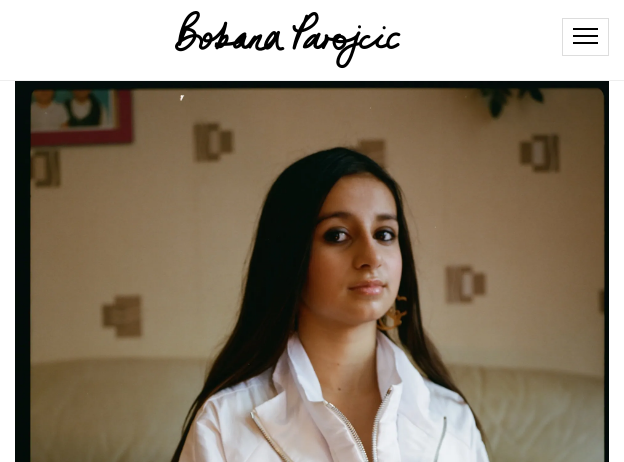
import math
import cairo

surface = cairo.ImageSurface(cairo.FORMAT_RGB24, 624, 462)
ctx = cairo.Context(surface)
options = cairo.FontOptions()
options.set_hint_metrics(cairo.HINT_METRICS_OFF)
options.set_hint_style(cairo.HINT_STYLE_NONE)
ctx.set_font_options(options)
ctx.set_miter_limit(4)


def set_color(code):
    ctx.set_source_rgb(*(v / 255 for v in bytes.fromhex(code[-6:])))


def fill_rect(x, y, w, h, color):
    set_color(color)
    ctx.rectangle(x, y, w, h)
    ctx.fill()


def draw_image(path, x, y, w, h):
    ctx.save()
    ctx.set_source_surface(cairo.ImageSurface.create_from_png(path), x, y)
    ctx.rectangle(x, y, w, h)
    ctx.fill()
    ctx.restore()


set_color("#ffffff")
ctx.paint()
fill_rect(0, 80, 624, 1, "#eeeeee")
draw_image("assets/img1.png", 175, 11, 226, 58)
ctx.rectangle(562.5, 18.5, 46, 37)
set_color("#dddddd")
ctx.set_line_width(1)
ctx.stroke()
fill_rect(573, 28, 25, 2, "#000000")
fill_rect(573, 35, 25, 2, "#000000")
fill_rect(573, 42, 25, 2, "#000000")
draw_image("assets/img2.png", 15, 81, 594, 381)
surface.write_to_png("output.png")
